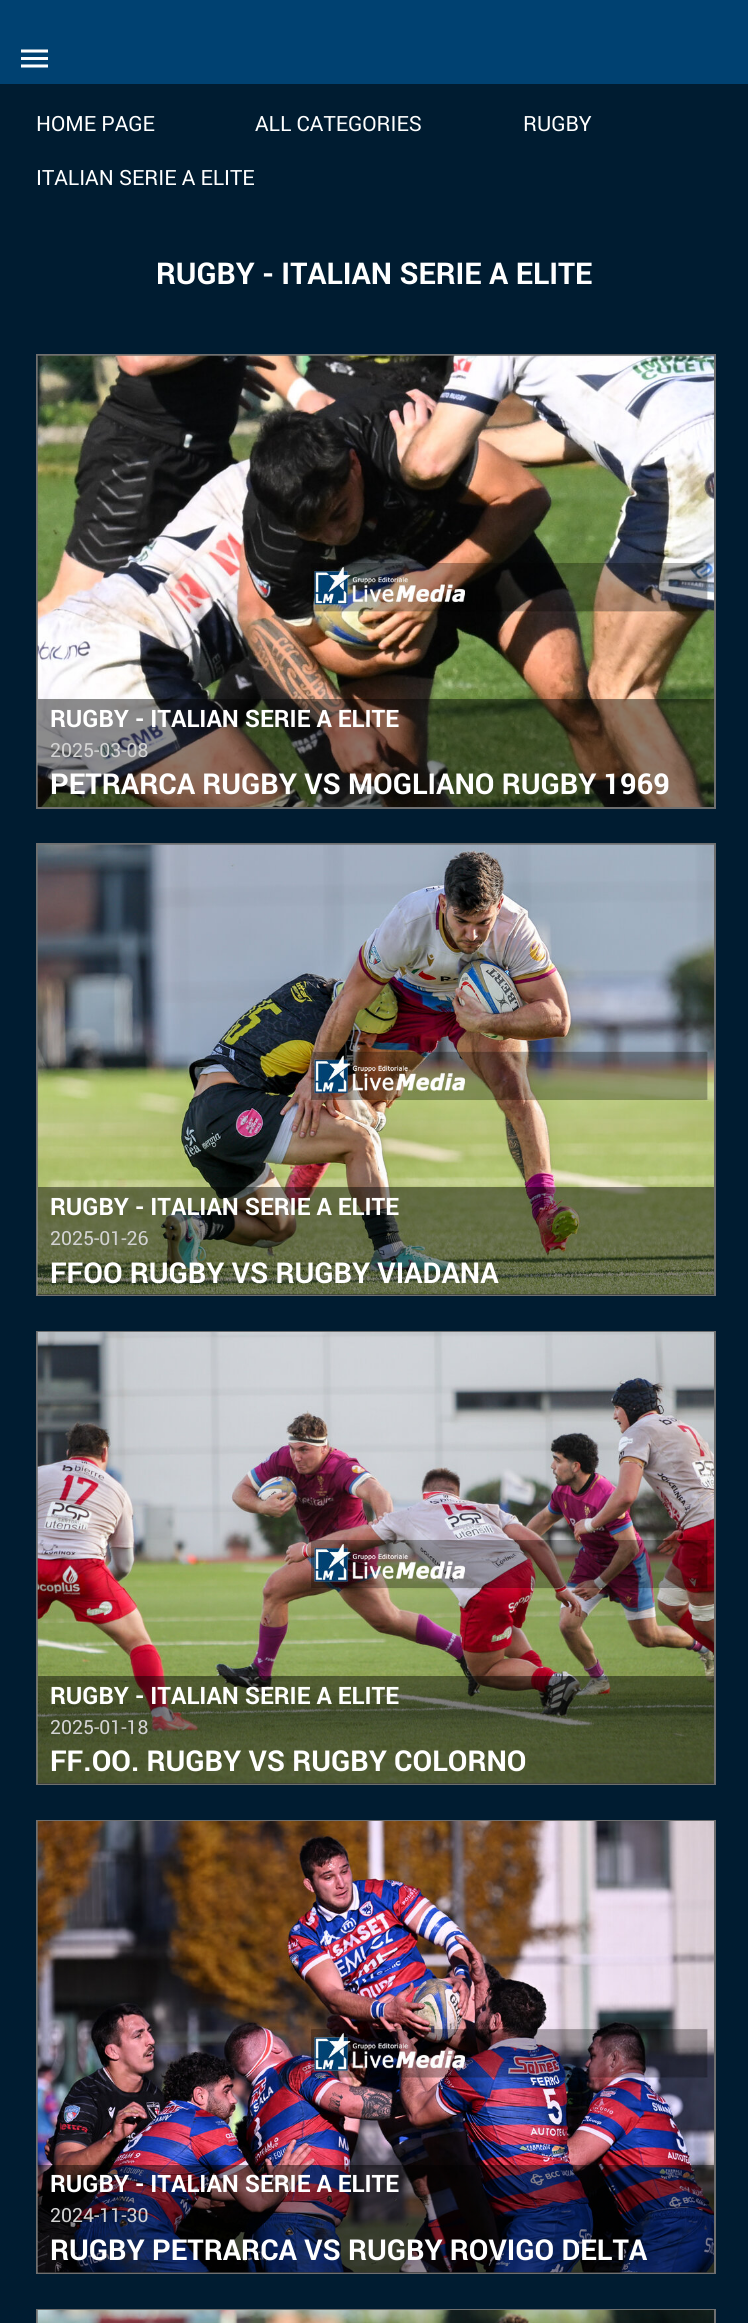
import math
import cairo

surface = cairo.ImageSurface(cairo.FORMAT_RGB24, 748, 2323)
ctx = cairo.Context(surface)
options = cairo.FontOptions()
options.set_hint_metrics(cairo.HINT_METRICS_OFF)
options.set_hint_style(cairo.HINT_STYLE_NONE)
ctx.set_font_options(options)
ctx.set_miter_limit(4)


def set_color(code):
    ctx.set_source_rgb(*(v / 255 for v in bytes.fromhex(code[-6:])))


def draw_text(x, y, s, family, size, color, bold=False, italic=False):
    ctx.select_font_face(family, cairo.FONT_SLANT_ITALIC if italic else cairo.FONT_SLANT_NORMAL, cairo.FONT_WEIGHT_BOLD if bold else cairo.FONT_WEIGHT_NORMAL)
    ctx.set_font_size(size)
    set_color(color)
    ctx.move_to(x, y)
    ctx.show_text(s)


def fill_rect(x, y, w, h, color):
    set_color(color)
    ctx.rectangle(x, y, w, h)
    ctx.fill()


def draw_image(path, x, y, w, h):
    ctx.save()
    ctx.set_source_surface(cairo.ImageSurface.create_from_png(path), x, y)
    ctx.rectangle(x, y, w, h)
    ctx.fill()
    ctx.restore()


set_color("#001c31")
ctx.paint()
fill_rect(0, 0, 748, 84, "#004171")
draw_image("assets/img1.png", 21, 49, 27, 19)
draw_text(36, 131, "HOME PAGE", "Roboto", 21, "#ffffff")
draw_text(255, 131, "ALL CATEGORIES", "Roboto", 21, "#ffffff")
draw_text(523, 131, "RUGBY", "Roboto", 21, "#ffffff")
draw_text(36, 185, "ITALIAN SERIE A ELITE", "Roboto", 21, "#ffffff")
draw_text(156, 284, "RUGBY - ITALIAN SERIE A ELITE", "Roboto", 30, "#ffffff", bold=True)
ctx.rectangle(37, 355, 678, 453)
set_color("#6f6f6f")
ctx.stroke()
draw_image("assets/img2.png", 37, 355, 677, 452)
ctx.set_source_rgba(0, 0, 0, 0.45)
ctx.rectangle(38, 699, 676, 108)
ctx.fill()
draw_text(50, 727, "RUGBY - ITALIAN SERIE A ELITE", "Roboto", 24, "#ffffff", bold=True)
draw_text(50, 757, "2025-03-08", "Roboto", 19.5, "#d3d3d3")
draw_text(50, 794, "PETRARCA RUGBY VS MOGLIANO RUGBY 1969", "Roboto", 28.8, "#ffffff", bold=True)
ctx.rectangle(37, 844, 678, 451)
set_color("#6f6f6f")
ctx.stroke()
draw_image("assets/img3.png", 37, 844, 677, 451)
ctx.set_source_rgba(0, 0, 0, 0.45)
ctx.rectangle(38, 1187, 676, 108)
ctx.fill()
draw_text(50, 1215, "RUGBY - ITALIAN SERIE A ELITE", "Roboto", 24, "#ffffff", bold=True)
draw_text(50, 1245, "2025-01-26", "Roboto", 19.5, "#d3d3d3")
draw_text(50, 1283, "FFOO RUGBY VS RUGBY VIADANA", "Roboto", 28.8, "#ffffff", bold=True)
ctx.rectangle(37, 1332, 678, 452)
set_color("#6f6f6f")
ctx.stroke()
draw_image("assets/img4.png", 37, 1332, 677, 452)
ctx.set_source_rgba(0, 0, 0, 0.45)
ctx.rectangle(38, 1676, 676, 108)
ctx.fill()
draw_text(50, 1704, "RUGBY - ITALIAN SERIE A ELITE", "Roboto", 24, "#ffffff", bold=True)
draw_text(50, 1734, "2025-01-18", "Roboto", 19.5, "#d3d3d3")
draw_text(50, 1771, "FF.OO. RUGBY VS RUGBY COLORNO", "Roboto", 28.8, "#ffffff", bold=True)
ctx.rectangle(37, 1821, 678, 452)
set_color("#6f6f6f")
ctx.stroke()
draw_image("assets/img5.png", 37, 1821, 677, 452)
ctx.set_source_rgba(0, 0, 0, 0.45)
ctx.rectangle(38, 2165, 676, 108)
ctx.fill()
draw_text(50, 2192, "RUGBY - ITALIAN SERIE A ELITE", "Roboto", 24, "#ffffff", bold=True)
draw_text(50, 2222, "2024-11-30", "Roboto", 19.5, "#d3d3d3")
draw_text(50, 2260, "RUGBY PETRARCA VS RUGBY ROVIGO DELTA", "Roboto", 28.8, "#ffffff", bold=True)
ctx.rectangle(37, 2310, 678, 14)
set_color("#6f6f6f")
ctx.stroke()
draw_image("assets/img6.png", 37, 2310, 677, 13)
surface.write_to_png("output.png")
